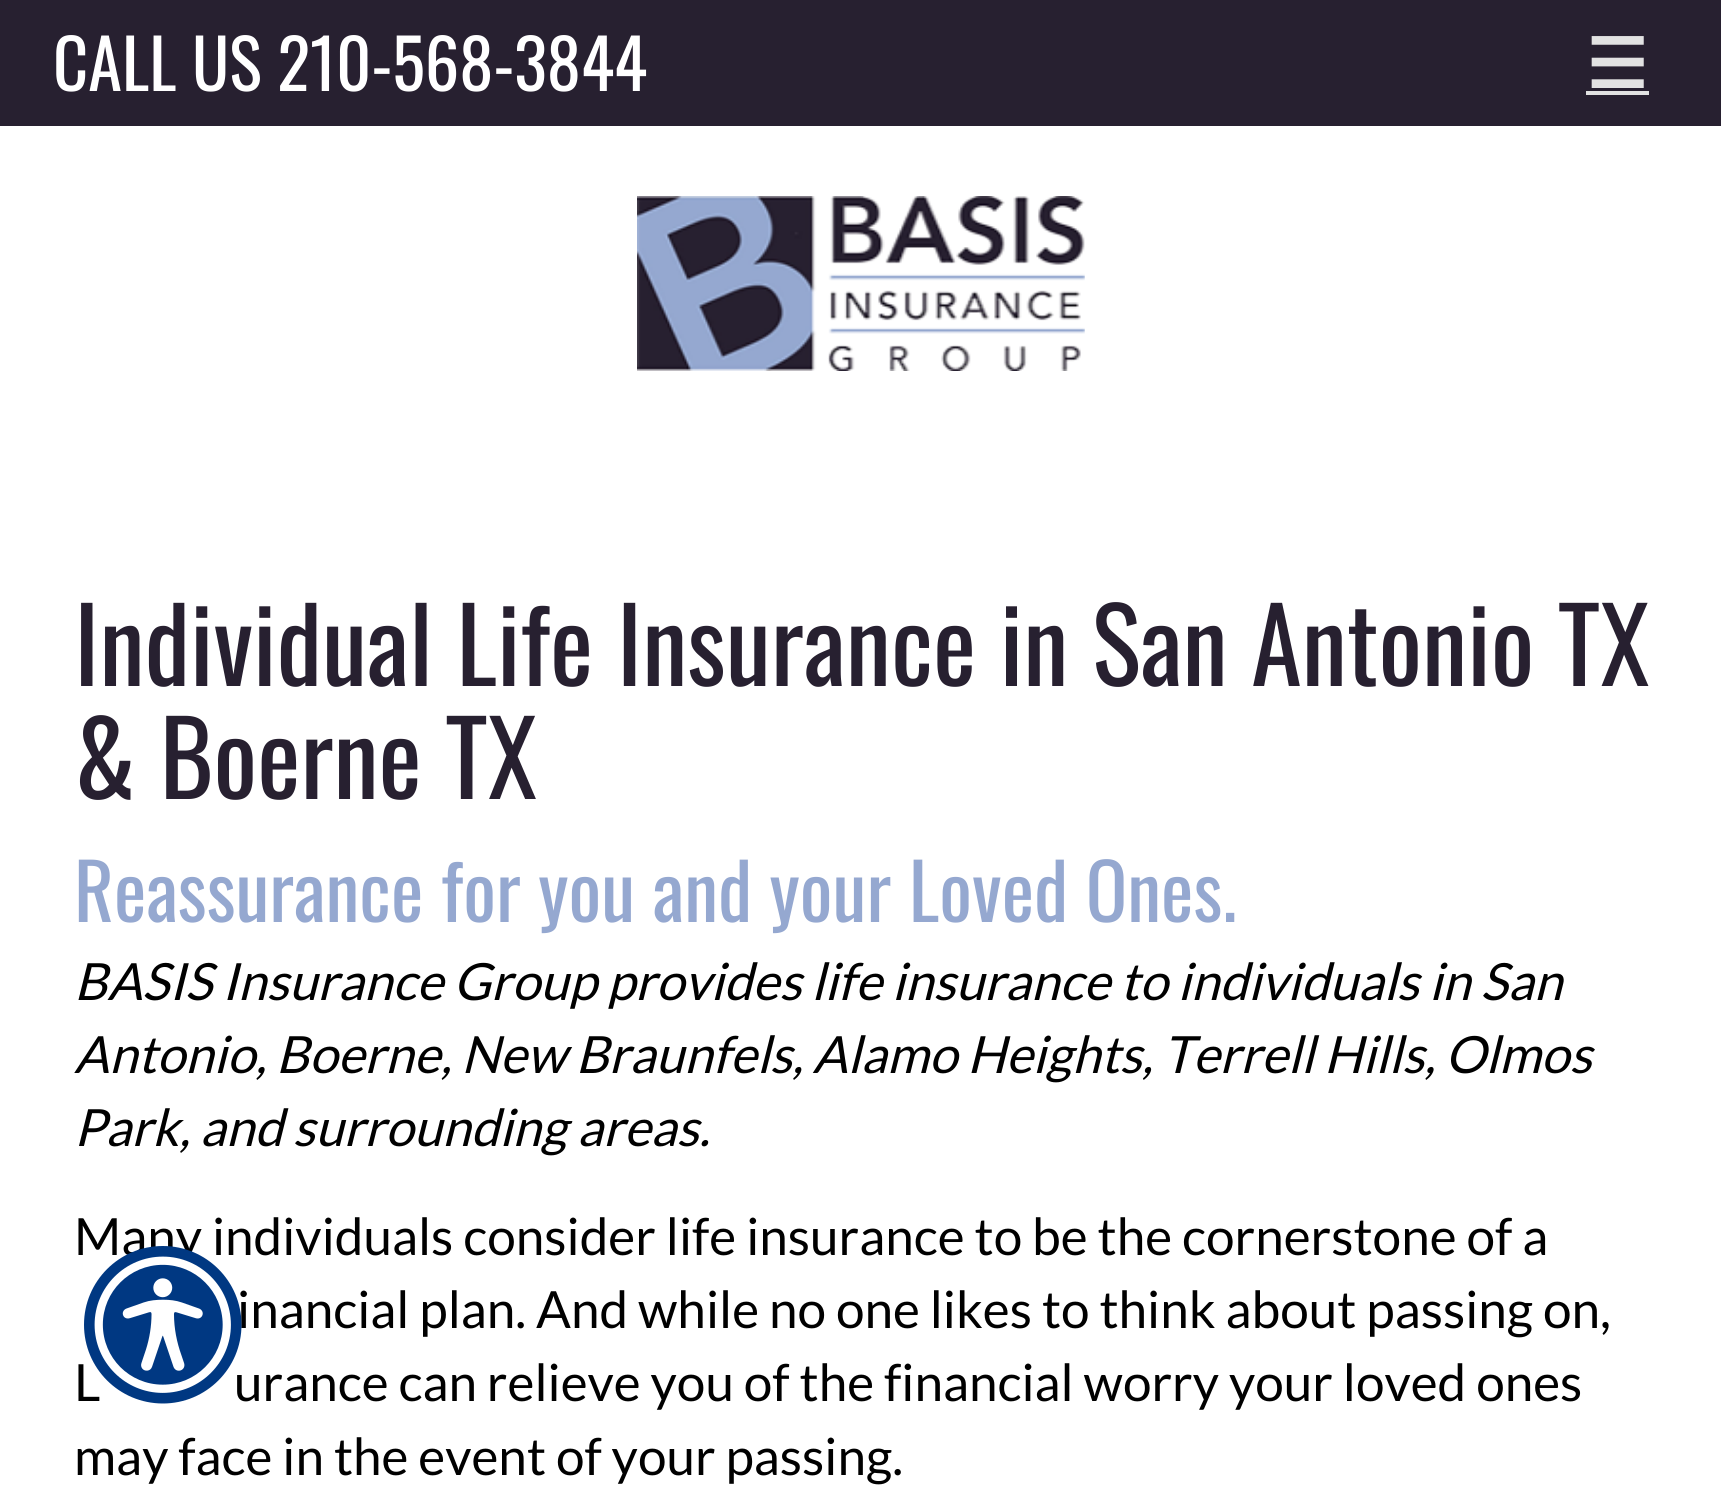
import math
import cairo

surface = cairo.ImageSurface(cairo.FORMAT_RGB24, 1721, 1504)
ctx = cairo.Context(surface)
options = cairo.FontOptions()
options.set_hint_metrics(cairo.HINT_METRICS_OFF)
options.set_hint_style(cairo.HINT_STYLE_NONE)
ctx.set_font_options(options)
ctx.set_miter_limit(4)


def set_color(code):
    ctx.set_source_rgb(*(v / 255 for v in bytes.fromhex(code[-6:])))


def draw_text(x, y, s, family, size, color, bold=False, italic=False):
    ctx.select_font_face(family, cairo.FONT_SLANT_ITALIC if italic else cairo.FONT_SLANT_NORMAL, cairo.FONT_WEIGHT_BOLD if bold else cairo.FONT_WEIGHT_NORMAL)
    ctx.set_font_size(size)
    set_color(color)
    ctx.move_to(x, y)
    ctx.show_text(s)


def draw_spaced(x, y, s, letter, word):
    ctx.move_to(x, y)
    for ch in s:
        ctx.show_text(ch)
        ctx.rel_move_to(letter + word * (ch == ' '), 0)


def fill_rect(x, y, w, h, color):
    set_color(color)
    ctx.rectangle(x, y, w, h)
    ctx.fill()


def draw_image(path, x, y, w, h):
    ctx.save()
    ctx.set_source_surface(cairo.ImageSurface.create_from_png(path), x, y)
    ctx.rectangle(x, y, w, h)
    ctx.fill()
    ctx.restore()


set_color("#ffffff")
ctx.paint()
fill_rect(0, 0, 1721, 126, "#272030")
draw_text(53, 91, "CALL US 210-568-3844", "Oswald", 68.5, "#ffffff")
draw_text(1586, 88, "☰", "DejaVu Sans", 68.5, "#e2e2e2", bold=True)
fill_rect(1586, 91, 63, 4, "#e2e2e2")
draw_image("assets/img1.png", 637, 196, 448, 175)
draw_text(74, 686, "Individual Life Insurance in San Antonio TX", "Oswald", 102.7, "#272030")
draw_text(74, 799, "& Boerne TX", "Oswald", 102.7, "#272030")
draw_text(74, 922, "Reassurance for you and your Loved Ones.", "Oswald", 77, "#95a8d0")
draw_text(74, 1000, "BASIS Insurance Group provides life insurance to individuals in San", "Lato", 51.3, "#000000", italic=True)
draw_spaced(74, 1073, "Antonio, Boerne, New Braunfels, Alamo Heights, Terrell Hills, Olmos", 0, -0.25)
draw_text(74, 1146, "Park, and surrounding areas.", "Lato", 51.3, "#000000", italic=True)
draw_text(74, 1255, "Many individuals consider life insurance to be the cornerstone of a", "Lato", 51.3, "#000000")
draw_text(237, 1328, "inancial plan. And while no one likes to think about passing on,", "Lato", 51.3, "#000000")
draw_text(74, 1401, "L", "Lato", 51.3, "#000000")
draw_text(234, 1401, "urance can relieve you of the financial worry your loved ones", "Lato", 51.3, "#000000")
draw_text(74, 1475, "may face in the event of your passing.", "Lato", 51.3, "#000000")
draw_image("assets/img2.png", 84, 1246, 158, 158)
surface.write_to_png("output.png")
